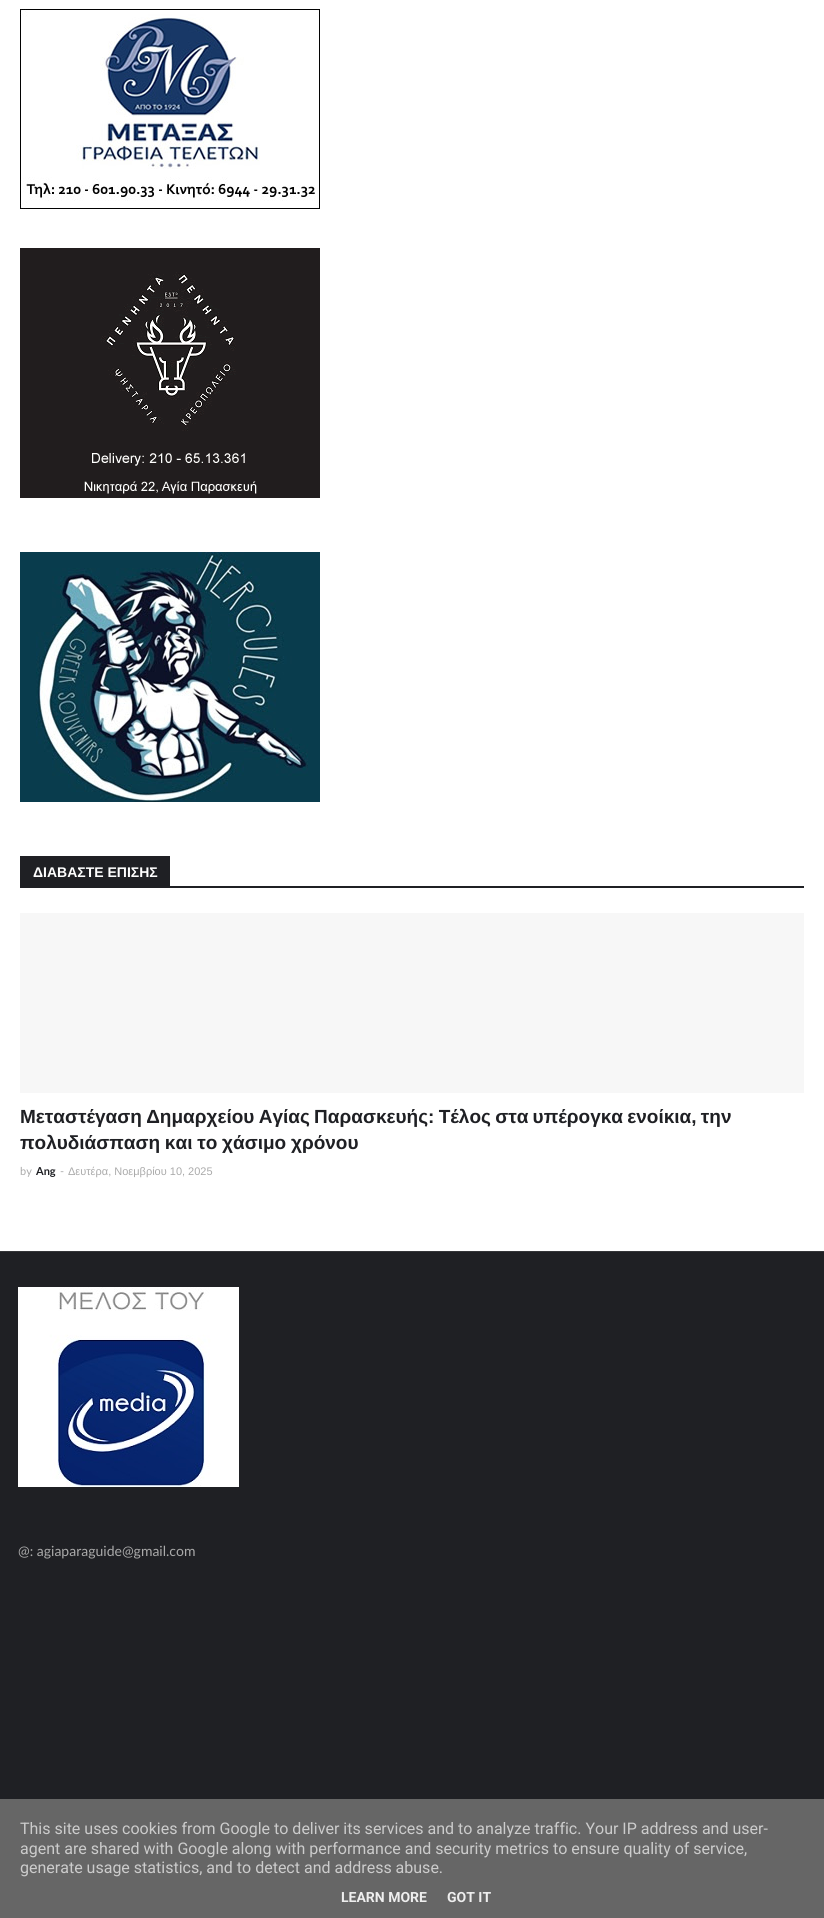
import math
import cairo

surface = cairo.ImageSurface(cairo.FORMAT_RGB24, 824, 1918)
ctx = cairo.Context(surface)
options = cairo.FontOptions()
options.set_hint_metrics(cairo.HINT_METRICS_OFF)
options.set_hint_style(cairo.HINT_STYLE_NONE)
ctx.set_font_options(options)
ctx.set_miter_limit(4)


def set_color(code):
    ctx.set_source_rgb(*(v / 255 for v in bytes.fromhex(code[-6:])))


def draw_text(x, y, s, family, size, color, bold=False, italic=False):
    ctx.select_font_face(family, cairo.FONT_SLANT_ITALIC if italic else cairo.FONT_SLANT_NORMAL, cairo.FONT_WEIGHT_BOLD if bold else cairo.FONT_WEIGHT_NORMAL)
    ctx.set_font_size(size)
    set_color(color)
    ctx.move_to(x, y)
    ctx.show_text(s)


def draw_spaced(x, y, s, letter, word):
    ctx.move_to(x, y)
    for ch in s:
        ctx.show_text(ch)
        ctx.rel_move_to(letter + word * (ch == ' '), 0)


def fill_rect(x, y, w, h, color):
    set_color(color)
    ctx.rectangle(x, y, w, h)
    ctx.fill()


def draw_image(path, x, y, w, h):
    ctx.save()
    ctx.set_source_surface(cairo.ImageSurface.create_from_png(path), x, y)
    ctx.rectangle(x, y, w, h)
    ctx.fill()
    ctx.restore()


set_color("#ffffff")
ctx.paint()
draw_image("assets/img1.png", 20, 9, 300, 200)
draw_image("assets/img2.png", 20, 248, 300, 250)
draw_image("assets/img3.png", 20, 552, 300, 250)
fill_rect(20, 886, 784, 2, "#1f2024")
fill_rect(20, 856, 150, 30, "#1f2024")
draw_text(33, 877, "ΔΙΑΒΑΣΤΕ ΕΠΙΣΗΣ", "Liberation Sans", 14, "#ffffff", bold=True)
fill_rect(20, 913, 784, 180, "#f7f7f7")
ctx.set_font_size(19)
set_color("#1f2024")
draw_spaced(20, 1123, "Μεταστέγαση Δημαρχείου Αγίας Παρασκευής: Τέλος στα υπέρογκα ενοίκια, την", 0, -1)
draw_spaced(20, 1149, "πολυδιάσπαση και το χάσιμο χρόνου", 0, -0.5)
draw_text(20, 1175, "by", "Lato", 11, "#aaaaaa")
draw_text(36, 1175, "Ang", "Lato", 11, "#1f2024", bold=True)
draw_text(60, 1175, "-", "Lato", 11, "#aaaaaa")
draw_text(68, 1175, "Δευτέρα, Νοεμβρίου 10, 2025", "Liberation Sans", 11, "#aaaaaa")
fill_rect(0, 1252, 824, 547, "#1f2024")
fill_rect(0, 1251, 824, 1, "#343538")
draw_image("assets/img4.png", 18, 1287, 221, 200)
draw_text(18, 1556, "@: agiaparaguide@gmail.com", "Lato", 14, "#aaaaaa")
fill_rect(0, 1799, 824, 119, "#666666")
draw_text(20, 1834, "This site uses cookies from Google to deliver its services and to analyze traffic. Your IP address and user-", "Roboto", 16, "#cccccc")
draw_text(20, 1854, "agent are shared with Google along with performance and security metrics to ensure quality of service,", "Roboto", 16, "#cccccc")
draw_text(20, 1873, "generate usage statistics, and to detect and address abuse.", "Roboto", 16, "#cccccc")
draw_text(341, 1902, "LEARN MORE", "Roboto", 14, "#eeeeee", bold=True)
draw_text(447, 1902, "GOT IT", "Roboto", 14, "#eeeeee", bold=True)
surface.write_to_png("output.png")
